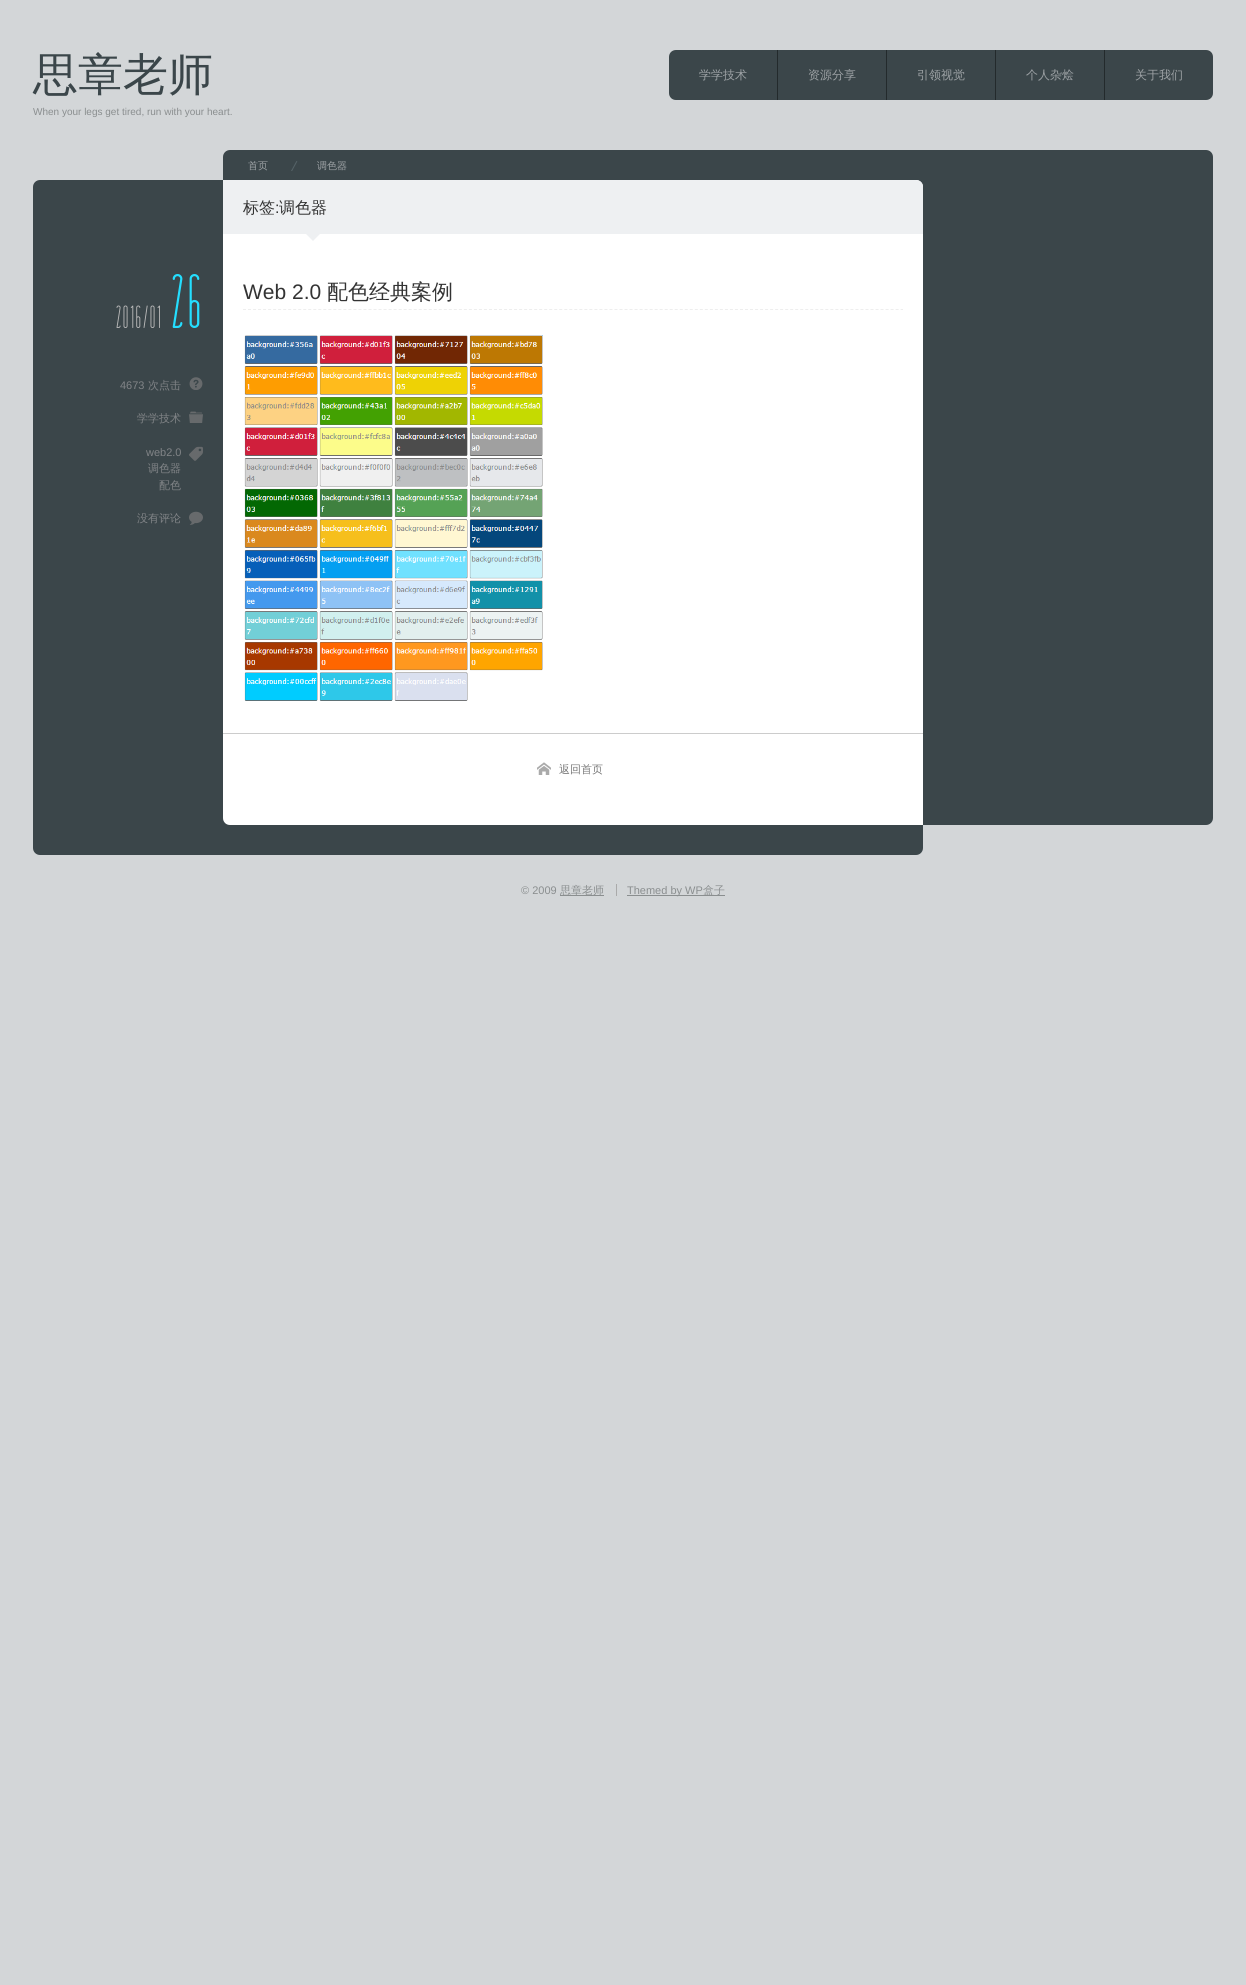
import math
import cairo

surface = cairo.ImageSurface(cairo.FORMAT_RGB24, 1246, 1985)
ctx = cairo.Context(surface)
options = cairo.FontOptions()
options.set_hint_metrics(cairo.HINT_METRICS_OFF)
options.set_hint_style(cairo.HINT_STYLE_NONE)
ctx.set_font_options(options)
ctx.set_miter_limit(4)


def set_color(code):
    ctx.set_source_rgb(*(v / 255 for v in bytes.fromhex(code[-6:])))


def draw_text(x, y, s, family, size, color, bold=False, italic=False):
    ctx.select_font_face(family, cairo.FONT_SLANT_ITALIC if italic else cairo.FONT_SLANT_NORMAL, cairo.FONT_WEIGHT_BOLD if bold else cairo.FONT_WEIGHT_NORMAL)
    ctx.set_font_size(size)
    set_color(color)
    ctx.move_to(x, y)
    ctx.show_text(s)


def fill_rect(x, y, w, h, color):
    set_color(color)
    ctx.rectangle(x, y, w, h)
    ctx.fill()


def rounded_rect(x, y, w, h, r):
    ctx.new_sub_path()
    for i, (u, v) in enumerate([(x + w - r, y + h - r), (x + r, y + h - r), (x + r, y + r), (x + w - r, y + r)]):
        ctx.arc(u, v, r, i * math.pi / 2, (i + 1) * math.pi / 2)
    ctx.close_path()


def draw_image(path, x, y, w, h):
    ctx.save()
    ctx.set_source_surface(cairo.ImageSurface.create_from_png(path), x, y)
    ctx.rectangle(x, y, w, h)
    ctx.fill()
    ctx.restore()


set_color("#d3d6d8")
ctx.paint()
draw_text(33, 90, "思章老师", "WenQuanYi Zen Hei Medium", 45, "#3b464a")
draw_text(33, 115, "When your legs get tired, run with your heart.", "Liberation Sans", 10, "#8a8e8f")
set_color("#3b464a")
ctx.new_path()
ctx.move_to(676, 50)
ctx.line_to(777, 50)
ctx.line_to(777, 100)
ctx.line_to(676, 100)
ctx.curve_to(672, 100, 669, 97, 669, 93)
ctx.line_to(669, 57)
ctx.curve_to(669, 53, 672, 50, 676, 50)
ctx.close_path()
ctx.fill()
draw_text(699, 79, "学学技术", "WenQuanYi Zen Hei Medium", 12, "#9da2a5")
fill_rect(778, 50, 108, 50, "#3b464a")
fill_rect(777, 50, 1, 50, "#232a2c")
draw_text(808, 79, "资源分享", "WenQuanYi Zen Hei Medium", 12, "#9da2a5")
fill_rect(887, 50, 108, 50, "#3b464a")
fill_rect(886, 50, 1, 50, "#232a2c")
draw_text(917, 79, "引领视觉", "WenQuanYi Zen Hei Medium", 12, "#9da2a5")
fill_rect(996, 50, 108, 50, "#3b464a")
fill_rect(995, 50, 1, 50, "#232a2c")
draw_text(1026, 79, "个人杂烩", "WenQuanYi Zen Hei Medium", 12, "#9da2a5")
set_color("#3b464a")
ctx.new_path()
ctx.move_to(1104, 50)
ctx.line_to(1206, 50)
ctx.curve_to(1210, 50, 1213, 53, 1213, 57)
ctx.line_to(1213, 93)
ctx.curve_to(1213, 97, 1210, 100, 1206, 100)
ctx.line_to(1104, 100)
ctx.close_path()
ctx.fill()
fill_rect(1104, 50, 1, 50, "#232a2c")
draw_text(1135, 79, "关于我们", "WenQuanYi Zen Hei Medium", 12, "#9da2a5")
set_color("#3b464a")
rounded_rect(223, 150, 990, 675, 7)
ctx.fill()
draw_text(248, 169, "首页", "WenQuanYi Zen Hei Medium", 10, "#9da2a5")
draw_image("assets/img1.png", 291, 161, 7, 10)
draw_text(317, 169, "调色器", "WenQuanYi Zen Hei Medium", 10, "#9da2a5")
set_color("#3b464a")
rounded_rect(33, 180, 890, 675, 7)
ctx.fill()
set_color("#ffffff")
ctx.new_path()
ctx.move_to(223, 180)
ctx.line_to(916, 180)
ctx.curve_to(920, 180, 923, 183, 923, 187)
ctx.line_to(923, 825)
ctx.line_to(230, 825)
ctx.curve_to(226, 825, 223, 822, 223, 818)
ctx.close_path()
ctx.fill()
set_color("#eef0f2")
ctx.new_path()
ctx.move_to(223, 180)
ctx.line_to(916, 180)
ctx.curve_to(920, 180, 923, 183, 923, 187)
ctx.line_to(923, 234)
ctx.line_to(223, 234)
ctx.close_path()
ctx.fill()
draw_text(243, 213, "标签", "WenQuanYi Zen Hei Medium", 16, "#333333")
draw_text(275, 213, ":", "Liberation Sans", 16, "#333333")
draw_text(279, 213, "调色器", "WenQuanYi Zen Hei Medium", 16, "#333333")
set_color("#eef0f2")
ctx.new_path()
ctx.move_to(303, 231)
ctx.line_to(323, 231)
ctx.line_to(313, 241)
ctx.close_path()
ctx.fill()
draw_text(115, 328, "2016/01", "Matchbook", 30, "#b9b9b9")
draw_text(169, 328, "26", "Matchbook", 72, "#24deff")
draw_text(120, 389, "4673", "Liberation Sans", 11, "#818487")
draw_text(148, 389, "次点击", "WenQuanYi Zen Hei Medium", 11, "#818487")
draw_image("assets/img2.png", 189, 377, 14, 13)
draw_text(137, 422, "学学技术", "WenQuanYi Zen Hei Medium", 11, "#818487")
draw_image("assets/img3.png", 189, 411, 14, 12)
draw_text(146, 456, "web2.0", "Liberation Sans", 11, "#818487")
draw_image("assets/img4.png", 189, 446, 14, 15)
draw_text(148, 472, "调色器", "WenQuanYi Zen Hei Medium", 11, "#818487")
draw_text(159, 489, "配色", "WenQuanYi Zen Hei Medium", 11, "#818487")
draw_text(137, 522, "没有评论", "WenQuanYi Zen Hei Medium", 11, "#818487")
draw_image("assets/img5.png", 189, 511, 14, 14)
fill_rect(223, 733, 700, 1, "#cccccc")
ctx.new_path()
ctx.move_to(243, 309.5)
ctx.line_to(903, 309.5)
set_color("#eeeeee")
ctx.set_line_width(1)
ctx.set_dash([3, 2.02])
ctx.stroke()
draw_text(243, 299, "Web 2.0", "Liberation Sans", 21, "#333333")
draw_text(327, 299, "配色经典案例", "WenQuanYi Zen Hei Medium", 21, "#333333")
draw_image("assets/img6.png", 244, 335, 299, 366)
draw_image("assets/img7.png", 537, 762, 14, 13)
draw_text(559, 773, "返回首页", "WenQuanYi Zen Hei Medium", 11, "#777777")
draw_text(521, 894, "© 2009", "Liberation Sans", 11, "#8a8e8f")
fill_rect(560, 895, 44, 1, "#8a8e8f")
draw_text(560, 894, "思章老师", "WenQuanYi Zen Hei Medium", 11, "#8a8e8f")
fill_rect(627, 895, 98, 1, "#8a8e8f")
draw_text(627, 894, "Themed by WP", "Liberation Sans", 11, "#8a8e8f")
fill_rect(616, 884, 1, 12, "#aaaaaa")
draw_text(703, 894, "盒子", "WenQuanYi Zen Hei Medium", 11, "#8a8e8f")
surface.write_to_png("output.png")
